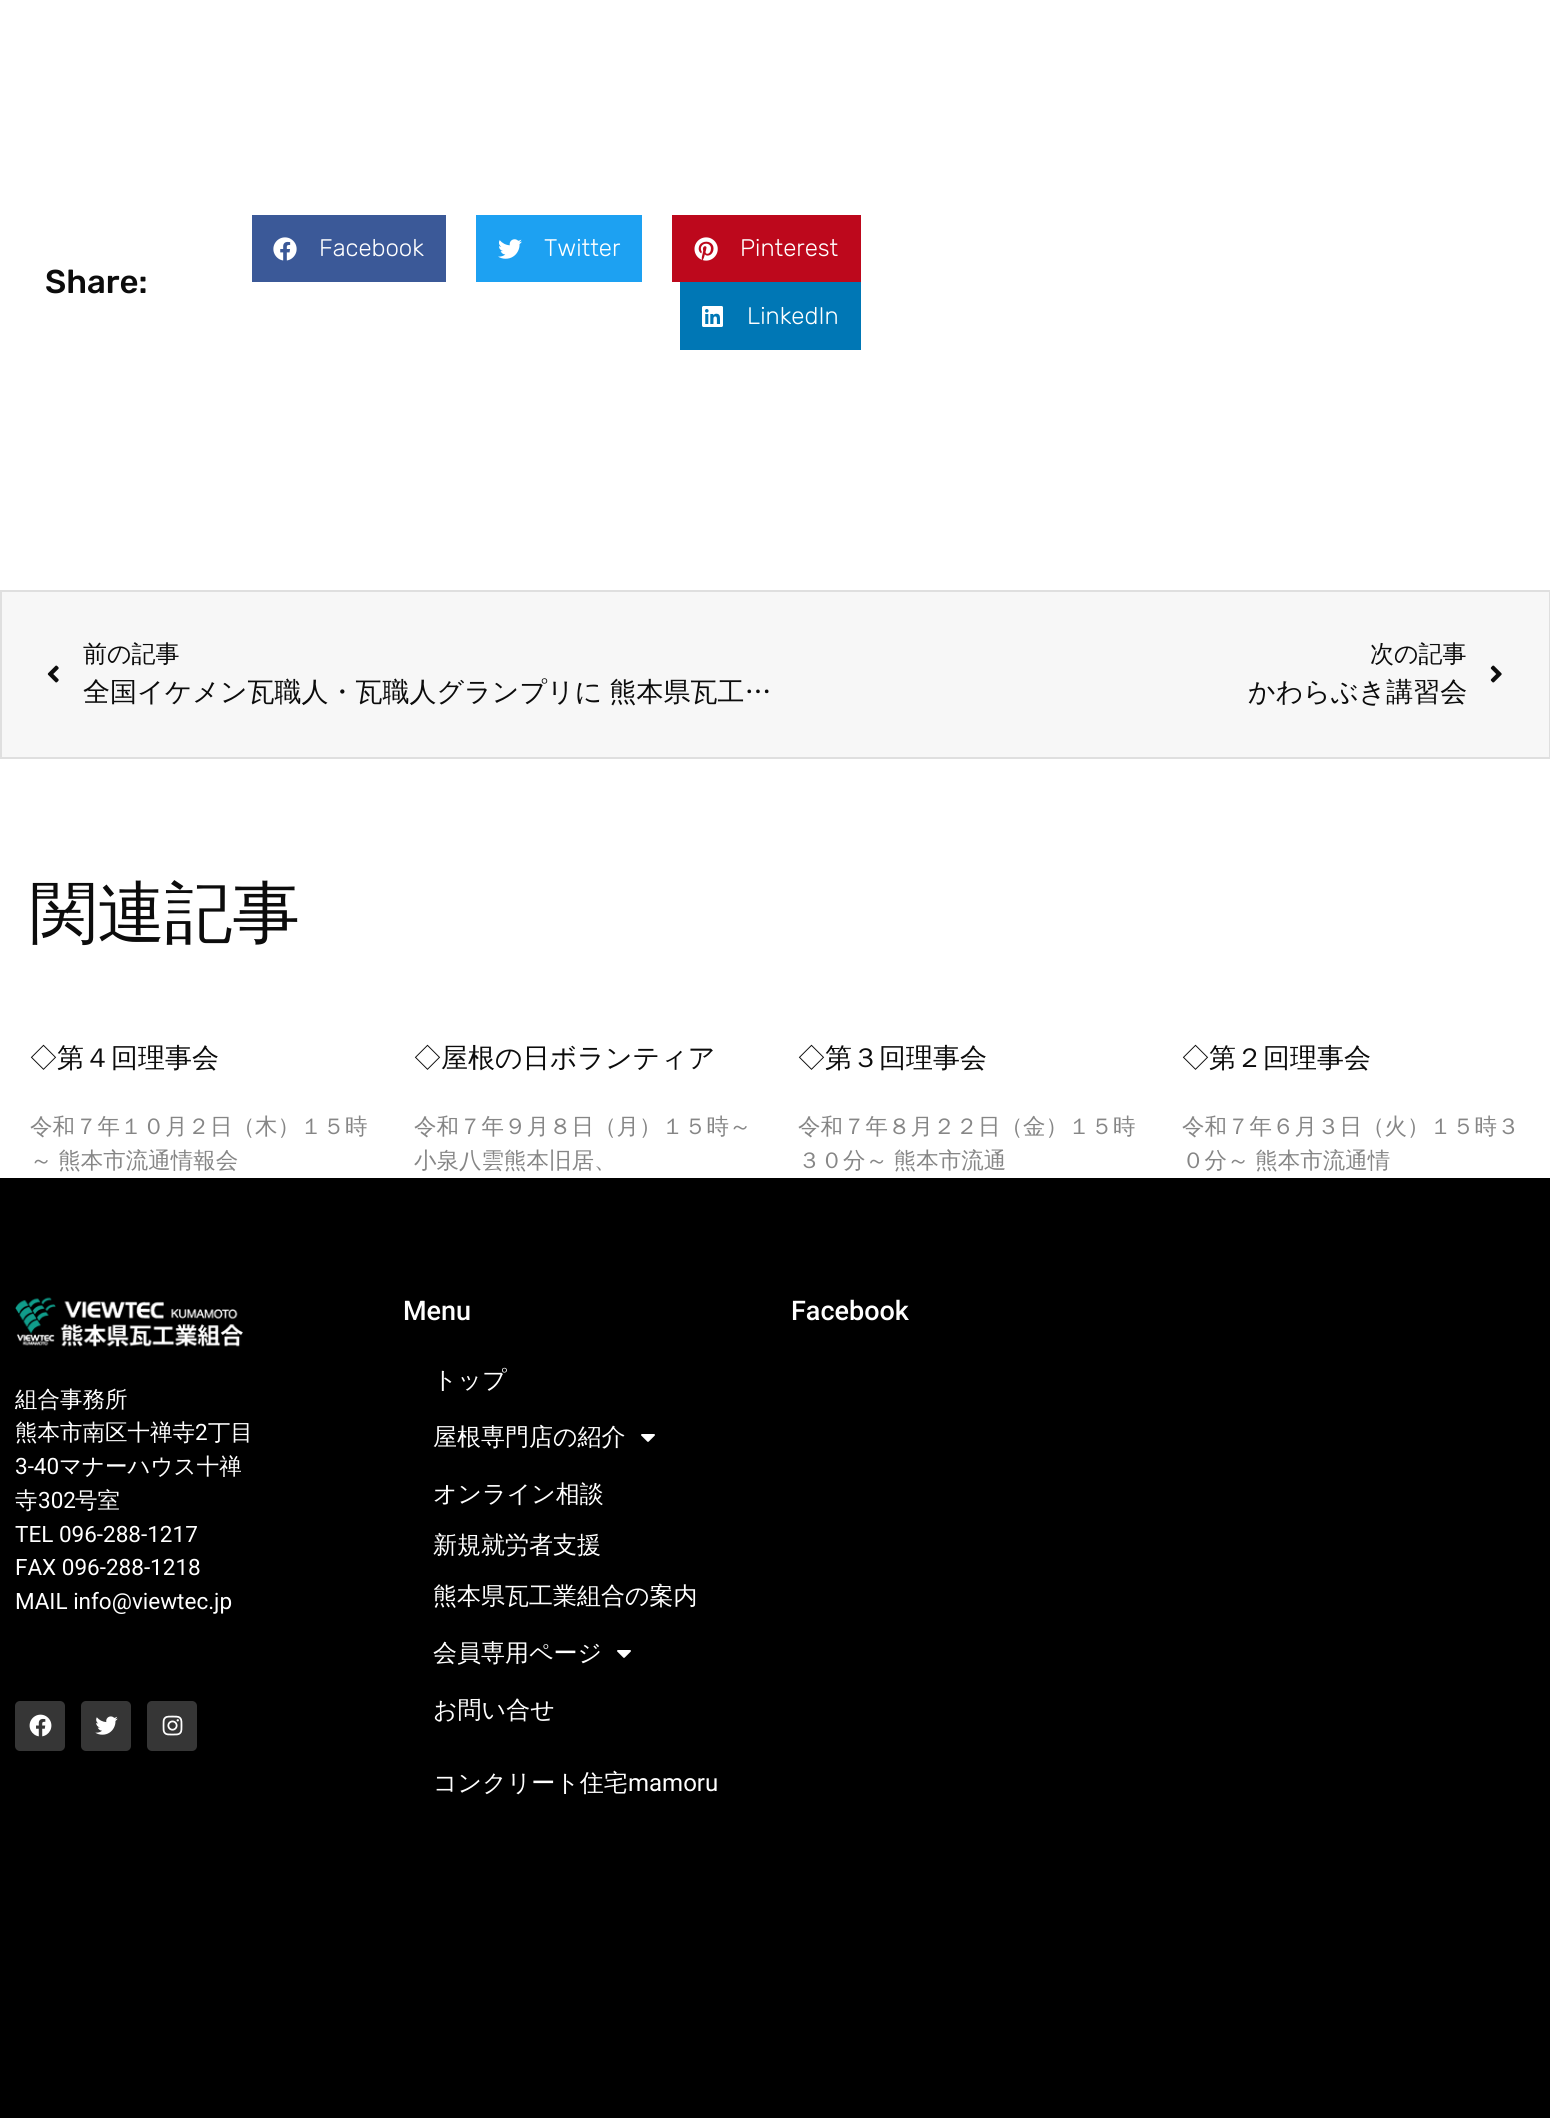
import math
import cairo

surface = cairo.ImageSurface(cairo.FORMAT_RGB24, 1550, 2118)
ctx = cairo.Context(surface)
options = cairo.FontOptions()
options.set_hint_metrics(cairo.HINT_METRICS_OFF)
options.set_hint_style(cairo.HINT_STYLE_NONE)
ctx.set_font_options(options)
ctx.set_miter_limit(4)


def set_color(code):
    ctx.set_source_rgb(*(v / 255 for v in bytes.fromhex(code[-6:])))


def draw_text(x, y, s, family, size, color, bold=False, italic=False):
    ctx.select_font_face(family, cairo.FONT_SLANT_ITALIC if italic else cairo.FONT_SLANT_NORMAL, cairo.FONT_WEIGHT_BOLD if bold else cairo.FONT_WEIGHT_NORMAL)
    ctx.set_font_size(size)
    set_color(color)
    ctx.move_to(x, y)
    ctx.show_text(s)


def draw_spaced(x, y, s, letter, word):
    ctx.move_to(x, y)
    for ch in s:
        ctx.show_text(ch)
        ctx.rel_move_to(letter + word * (ch == ' '), 0)


def fill_rect(x, y, w, h, color):
    set_color(color)
    ctx.rectangle(x, y, w, h)
    ctx.fill()


def rounded_rect(x, y, w, h, r):
    ctx.new_sub_path()
    for i, (u, v) in enumerate([(x + w - r, y + h - r), (x + r, y + h - r), (x + r, y + r), (x + w - r, y + r)]):
        ctx.arc(u, v, r, i * math.pi / 2, (i + 1) * math.pi / 2)
    ctx.close_path()


def draw_image(path, x, y, w, h):
    ctx.save()
    ctx.set_source_surface(cairo.ImageSurface.create_from_png(path), x, y)
    ctx.rectangle(x, y, w, h)
    ctx.fill()
    ctx.restore()


set_color("#ffffff")
ctx.paint()
draw_text(45, 293, "Share:", "Rubik Medium", 33, "#0c0c0c")
fill_rect(252, 215, 194, 67, "#3b5998")
draw_image("assets/img1.png", 273, 237, 24, 24)
draw_text(319, 256, "Facebook", "Rubik Light", 24, "#ffffff")
fill_rect(476, 215, 166, 67, "#1da1f2")
draw_image("assets/img2.png", 498, 239, 24, 20)
draw_text(544, 256, "Twitter", "Rubik Light", 24, "#ffffff")
fill_rect(672, 215, 189, 67, "#bd081c")
draw_image("assets/img3.png", 694, 237, 24, 24)
draw_text(740, 256, "Pinterest", "Rubik Light", 24, "#ffffff")
fill_rect(680, 282, 181, 68, "#0077b5")
draw_image("assets/img4.png", 702, 306, 21, 21)
draw_text(747, 324, "LinkedIn", "Rubik Light", 24, "#ffffff")
set_color("#f7f7f7")
ctx.rectangle(1, 591, 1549, 167)
ctx.fill_preserve()
set_color("#dfdfdf")
ctx.stroke()
draw_image("assets/img5.png", 47, 665, 12, 18)
draw_text(83, 662, "前の記事", "WenQuanYi Zen Hei Medium", 24, "#0c0c0c")
ctx.set_font_size(27)
draw_spaced(83, 701, "全国イケメン瓦職人・瓦職人グランプリに 熊本県瓦工…", 0, -1)
draw_text(1370, 662, "次の記事", "WenQuanYi Zen Hei Medium", 24, "#0c0c0c")
draw_text(1248, 701, "かわらぶき講習会", "WenQuanYi Zen Hei Medium", 27, "#0c0c0c")
draw_image("assets/img6.png", 1490, 665, 12, 18)
draw_text(30, 936, "関連記事", "WenQuanYi Zen Hei Medium", 67.5, "#0c0c0c")
draw_text(30, 1067, "◇第４回理事会", "WenQuanYi Zen Hei Medium", 27, "#0c0c0c")
draw_text(30, 1134, "令和７年１０月２日（木）１５時", "WenQuanYi Zen Hei Medium", 22.5, "#868686")
draw_spaced(30, 1168, "～ 熊本市流通情報会", 0, -1)
draw_text(414, 1067, "◇屋根の日ボランティア", "WenQuanYi Zen Hei Medium", 27, "#0c0c0c")
draw_text(414, 1134, "令和７年９月８日（月）１５時～", "WenQuanYi Zen Hei Medium", 22.5, "#868686")
draw_text(414, 1168, "小泉八雲熊本旧居、", "WenQuanYi Zen Hei Medium", 22.5, "#868686")
draw_text(798, 1067, "◇第３回理事会", "WenQuanYi Zen Hei Medium", 27, "#0c0c0c")
draw_text(798, 1134, "令和７年８月２２日（金）１５時", "WenQuanYi Zen Hei Medium", 22.5, "#868686")
draw_spaced(798, 1168, "３０分～ 熊本市流通", 0, -1)
draw_text(1182, 1067, "◇第２回理事会", "WenQuanYi Zen Hei Medium", 27, "#0c0c0c")
draw_text(1182, 1134, "令和７年６月３日（火）１５時３", "WenQuanYi Zen Hei Medium", 22.5, "#868686")
draw_spaced(1182, 1168, "０分～ 熊本市流通情", 0, -1)
fill_rect(0, 1178, 1550, 940, "#000000")
draw_image("assets/img7.png", 15, 1297, 228, 50)
draw_text(15, 1407, "組合事務所", "WenQuanYi Zen Hei Medium", 22.5, "#ffffff")
draw_text(15, 1440, "熊本市南区十禅寺", "WenQuanYi Zen Hei Medium", 22.5, "#ffffff")
draw_text(195, 1440, "2", "Roboto", 22.5, "#ffffff")
draw_text(208, 1440, "丁目", "WenQuanYi Zen Hei Medium", 22.5, "#ffffff")
draw_text(15, 1474, "3-40", "Roboto", 22.5, "#ffffff")
draw_text(59, 1474, "マナーハウス十禅", "WenQuanYi Zen Hei Medium", 22.5, "#ffffff")
draw_text(15, 1508, "寺", "WenQuanYi Zen Hei Medium", 22.5, "#ffffff")
draw_text(38, 1508, "302", "Roboto", 22.5, "#ffffff")
draw_text(75, 1508, "号室", "WenQuanYi Zen Hei Medium", 22.5, "#ffffff")
draw_text(15, 1542, "TEL 096-288-1217", "Roboto", 22.5, "#ffffff")
draw_text(15, 1575, "FAX 096-288-1218", "Roboto", 22.5, "#ffffff")
draw_text(15, 1609, "MAIL info@viewtec.jp", "Roboto", 22.5, "#ffffff")
set_color("#363636")
rounded_rect(15, 1701, 50, 50, 5)
ctx.fill()
draw_image("assets/img8.png", 29, 1714, 23, 23)
rounded_rect(81, 1701, 50, 50, 5)
ctx.fill()
draw_image("assets/img9.png", 95, 1716, 23, 19)
rounded_rect(147, 1701, 50, 50, 5)
ctx.fill()
draw_image("assets/img10.png", 162, 1715, 21, 21)
draw_text(403, 1320, "Menu", "Roboto Medium", 27, "#ffffff")
draw_text(433, 1388, "トップ", "WenQuanYi Zen Hei Medium", 24, "#ffffff")
draw_text(433, 1445, "屋根専門店の紹介", "WenQuanYi Zen Hei Medium", 24, "#ffffff")
draw_image("assets/img11.png", 641, 1434, 14, 8)
draw_text(433, 1502, "オンライン相談", "WenQuanYi Zen Hei Medium", 24, "#ffffff")
draw_text(433, 1553, "新規就労者支援", "WenQuanYi Zen Hei Medium", 24, "#ffffff")
draw_text(433, 1604, "熊本県瓦工業組合の案内", "WenQuanYi Zen Hei Medium", 24, "#ffffff")
draw_text(433, 1661, "会員専用ページ", "WenQuanYi Zen Hei Medium", 24, "#ffffff")
draw_image("assets/img11.png", 617, 1650, 14, 8)
draw_text(433, 1718, "お問い合せ", "WenQuanYi Zen Hei Medium", 24, "#ffffff")
draw_text(433, 1791, "コンクリート住宅", "WenQuanYi Zen Hei Medium", 24, "#ffffff")
draw_text(628, 1791, "mamoru", "Roboto", 24, "#ffffff")
draw_text(791, 1320, "Facebook", "Roboto Medium", 27, "#ffffff")
surface.write_to_png("output.png")
